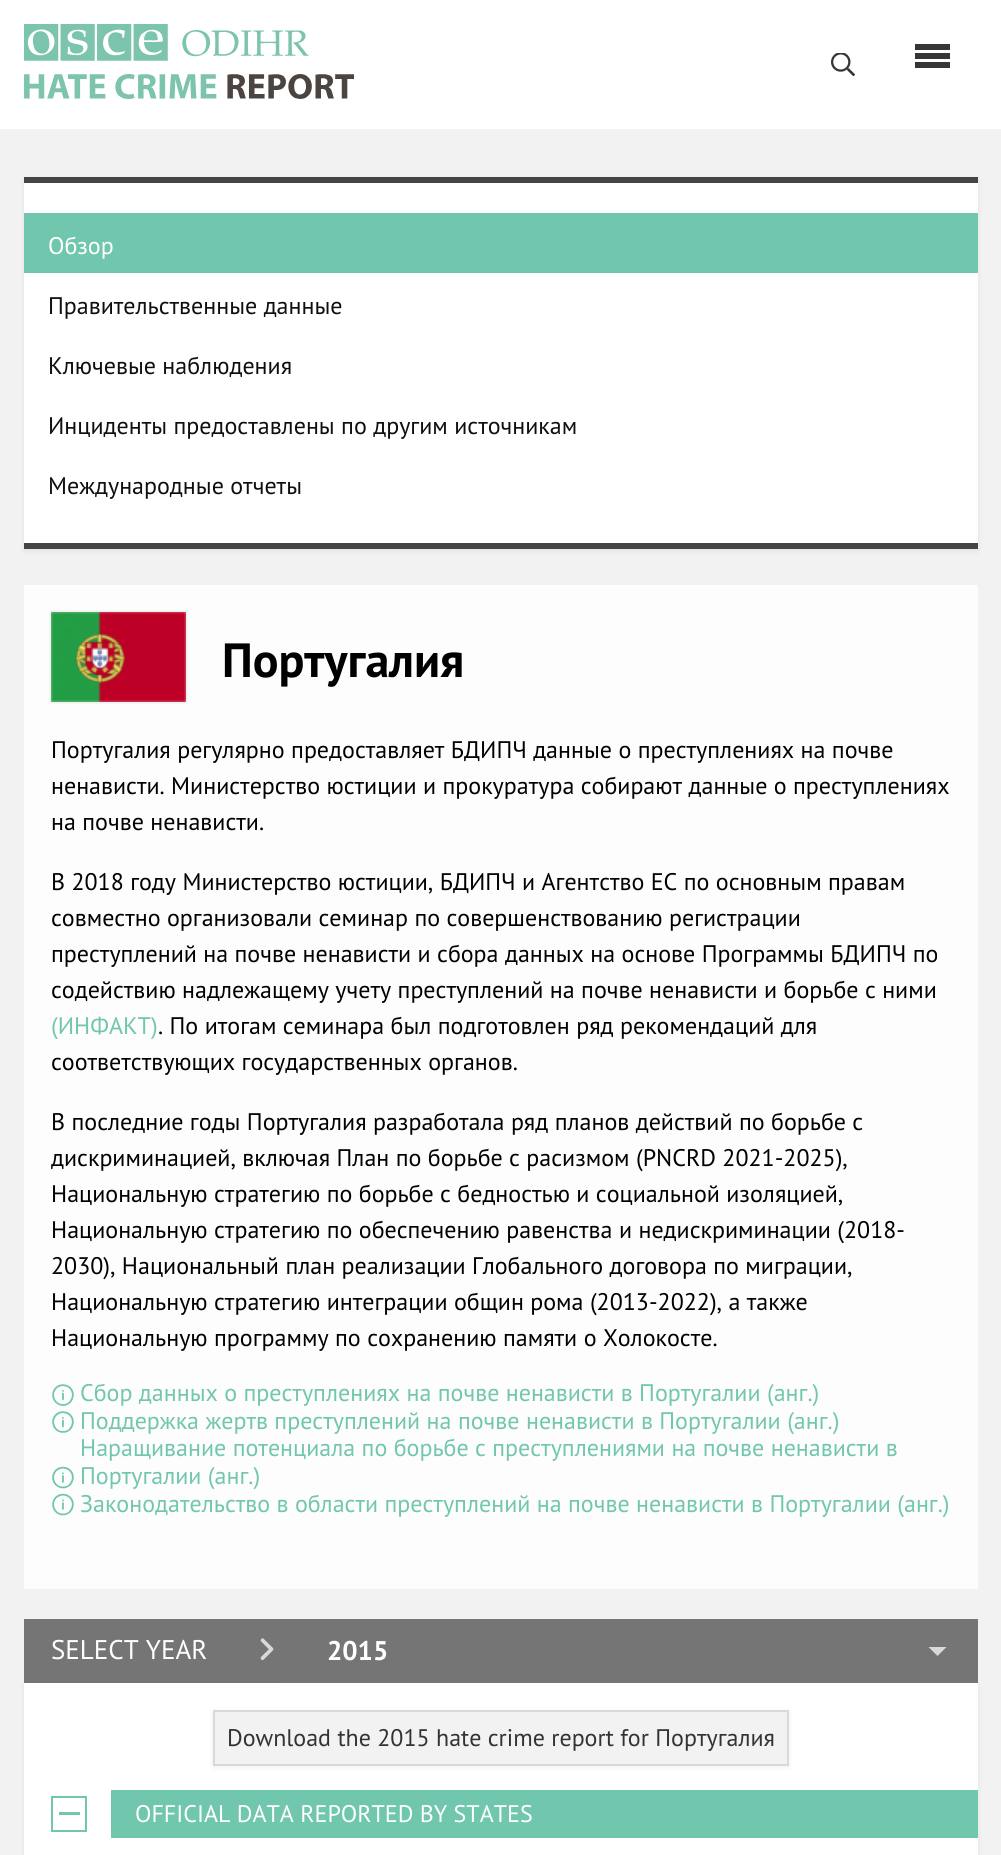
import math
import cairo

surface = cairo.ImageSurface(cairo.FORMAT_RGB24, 1001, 1855)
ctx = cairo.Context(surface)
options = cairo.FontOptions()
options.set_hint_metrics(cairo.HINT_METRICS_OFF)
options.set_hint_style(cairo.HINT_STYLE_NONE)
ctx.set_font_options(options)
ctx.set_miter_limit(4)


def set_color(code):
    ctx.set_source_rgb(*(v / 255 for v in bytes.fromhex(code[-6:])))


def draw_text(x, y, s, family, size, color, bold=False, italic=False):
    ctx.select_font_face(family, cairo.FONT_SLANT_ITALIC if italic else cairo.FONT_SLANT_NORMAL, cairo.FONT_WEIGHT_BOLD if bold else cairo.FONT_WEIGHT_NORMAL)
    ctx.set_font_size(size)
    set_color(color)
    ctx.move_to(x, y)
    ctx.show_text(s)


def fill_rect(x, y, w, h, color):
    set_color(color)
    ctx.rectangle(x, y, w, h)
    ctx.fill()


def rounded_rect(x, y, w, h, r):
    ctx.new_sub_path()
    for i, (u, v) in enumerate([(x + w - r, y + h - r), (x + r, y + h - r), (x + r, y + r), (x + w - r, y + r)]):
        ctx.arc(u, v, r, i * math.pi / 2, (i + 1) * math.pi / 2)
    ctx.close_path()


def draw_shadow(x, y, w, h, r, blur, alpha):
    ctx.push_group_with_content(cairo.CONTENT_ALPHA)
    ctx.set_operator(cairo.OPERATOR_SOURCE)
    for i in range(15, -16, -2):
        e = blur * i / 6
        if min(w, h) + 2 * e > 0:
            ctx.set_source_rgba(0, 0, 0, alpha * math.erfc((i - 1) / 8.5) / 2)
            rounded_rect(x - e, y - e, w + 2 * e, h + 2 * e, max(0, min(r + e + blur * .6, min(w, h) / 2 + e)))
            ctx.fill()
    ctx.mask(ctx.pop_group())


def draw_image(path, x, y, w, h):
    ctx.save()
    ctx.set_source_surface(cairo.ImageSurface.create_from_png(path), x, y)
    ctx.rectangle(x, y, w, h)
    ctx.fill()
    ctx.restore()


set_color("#f2f2f2")
ctx.paint()
fill_rect(0, 0, 1001, 129, "#ffffff")
draw_image("assets/img1.png", 24, 24, 330, 75)
draw_image("assets/img2.png", 831, 53, 24, 24)
fill_rect(915, 53, 35, 6, "#363636")
fill_rect(915, 44, 35, 6, "#363636")
fill_rect(915, 62, 35, 6, "#363636")
set_color("#000000")
draw_shadow(24, 179, 954, 372, 0, 3, 0.07)
fill_rect(24, 183, 954, 360, "#ffffff")
fill_rect(24, 177, 954, 6, "#464544")
fill_rect(24, 543, 954, 6, "#464544")
fill_rect(24, 213, 954, 60, "#71c6ae")
draw_text(48, 254, "Обзор", "PT Sans", 24, "#ffffff")
draw_text(48, 314, "Правительственные данные", "PT Sans", 24, "#0f0f0f")
draw_text(48, 374, "Ключевые наблюдения", "PT Sans", 24, "#0f0f0f")
draw_text(48, 434, "Инциденты предоставлены по другим источникам", "PT Sans", 24, "#0f0f0f")
draw_text(48, 494, "Международные отчеты", "PT Sans", 24, "#0f0f0f")
ctx.set_source_rgba(1, 1, 1, 0.85)
ctx.rectangle(24, 585, 954, 1004)
ctx.fill()
set_color("#d9d9d8")
draw_shadow(51, 612, 135, 90, 0, 1.5, 1)
draw_image("assets/img3.png", 51, 612, 135, 90)
draw_text(222, 677, "Португалия", "PT Sans", 48, "#000000", bold=True)
draw_text(51, 758, "Португалия регулярно предоставляет БДИПЧ данные о преступлениях на почве", "PT Sans", 24, "#000000")
draw_text(51, 794, "ненависти. Министерство юстиции и прокуратура собирают данные о преступлениях", "PT Sans", 24, "#000000")
draw_text(51, 830, "на почве ненависти.", "PT Sans", 24, "#000000")
draw_text(51, 890, "В 2018 году Министерство юстиции, БДИПЧ и Агентство ЕС по основным правам", "PT Sans", 24, "#000000")
draw_text(51, 926, "совместно организовали семинар по совершенствованию регистрации", "PT Sans", 24, "#000000")
draw_text(51, 962, "преступлений на почве ненависти и сбора данных на основе Программы БДИПЧ по", "PT Sans", 24, "#000000")
draw_text(51, 998, "содействию надлежащемy учету преступлений на почве ненависти и борьбе с ними", "PT Sans", 24, "#000000")
draw_text(51, 1034, "(ИНФАКТ)", "PT Sans", 24, "#71c6ae")
draw_text(158, 1034, ". По итогам семинара был подготовлен ряд рекомендаций для", "PT Sans", 24, "#000000")
draw_text(51, 1070, "соответствующих государственных органов.", "PT Sans", 24, "#000000")
draw_text(51, 1130, "В последние годы Португалия разработала ряд планов действий по борьбе с", "PT Sans", 24, "#000000")
draw_text(51, 1166, "дискриминацией, включая План по борьбе с расизмом (PNCRD 2021-2025),", "PT Sans", 24, "#000000")
draw_text(51, 1202, "Национальную стратегию по борьбе с бедностью и социальной изоляцией,", "PT Sans", 24, "#000000")
draw_text(51, 1238, "Национальную стратегию по обеспечению равенства и недискриминации (2018-", "PT Sans", 24, "#000000")
draw_text(51, 1274, "2030), Национальный план реализации Глобального договора по миграции,", "PT Sans", 24, "#000000")
draw_text(51, 1310, "Национальную стратегию интеграции общин рома (2013-2022), а также", "PT Sans", 24, "#000000")
draw_text(51, 1346, "Национальную программу по сохранению памяти о Холокосте.", "PT Sans", 24, "#000000")
draw_image("assets/img4.png", 52, 1384, 22, 22)
draw_text(80, 1401, "Сбор данных о преступлениях на почве ненависти в Португалии (анг.)", "PT Sans", 24, "#71c6ae")
draw_image("assets/img4.png", 52, 1411, 22, 22)
draw_text(80, 1429, "Поддержка жертв преступлений на почве ненависти в Португалии (анг.)", "PT Sans", 24, "#71c6ae")
draw_text(80, 1456, "Наращивание потенциала по борьбе с преступлениями на почве ненависти в", "PT Sans", 24, "#71c6ae")
draw_image("assets/img5.png", 52, 1466, 22, 23)
draw_text(80, 1484, "Португалии (анг.)", "PT Sans", 24, "#71c6ae")
draw_image("assets/img5.png", 52, 1493, 22, 23)
draw_text(80, 1512, "Законодательство в области преступлений на почве ненависти в Португалии (анг.)", "PT Sans", 24, "#71c6ae")
fill_rect(24, 1619, 255, 64, "#757575")
draw_text(51, 1659, "SELECT YEAR", "PT Sans", 27, "#ffffff")
draw_image("assets/img6.png", 260, 1638, 14, 22)
set_color("#000000")
draw_shadow(24, 1685, 954, 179, 0, 3, 0.07)
fill_rect(279, 1619, 699, 64, "#757575")
draw_text(327, 1660, "2015", "PT Sans", 27, "#ffffff", bold=True)
set_color("#d9d9d8")
ctx.new_path()
ctx.move_to(928.5, 1647)
ctx.line_to(946.5, 1647)
ctx.line_to(937.5, 1656)
ctx.close_path()
ctx.fill()
fill_rect(24, 1683, 954, 172, "#ffffff")
set_color("#000000")
draw_shadow(213, 1712, 576, 55, 0, 3, 0.07)
set_color("#f2f2f2")
ctx.rectangle(214, 1711, 574, 54)
ctx.fill_preserve()
set_color("#d9d9d8")
ctx.stroke()
draw_text(227, 1746, "Download the 2015 hate crime report for Португалия", "PT Sans", 24, "#333333")
ctx.rectangle(52, 1797, 34, 34)
set_color("#71c6ae")
ctx.stroke()
fill_rect(59, 1812, 21, 3, "#71c6ae")
fill_rect(111, 1790, 867, 48, "#71c6ae")
draw_text(135, 1822, "OFFICIAL DATA REPORTED BY STATES", "PT Sans", 24, "#ffffff")
surface.write_to_png("output.png")
